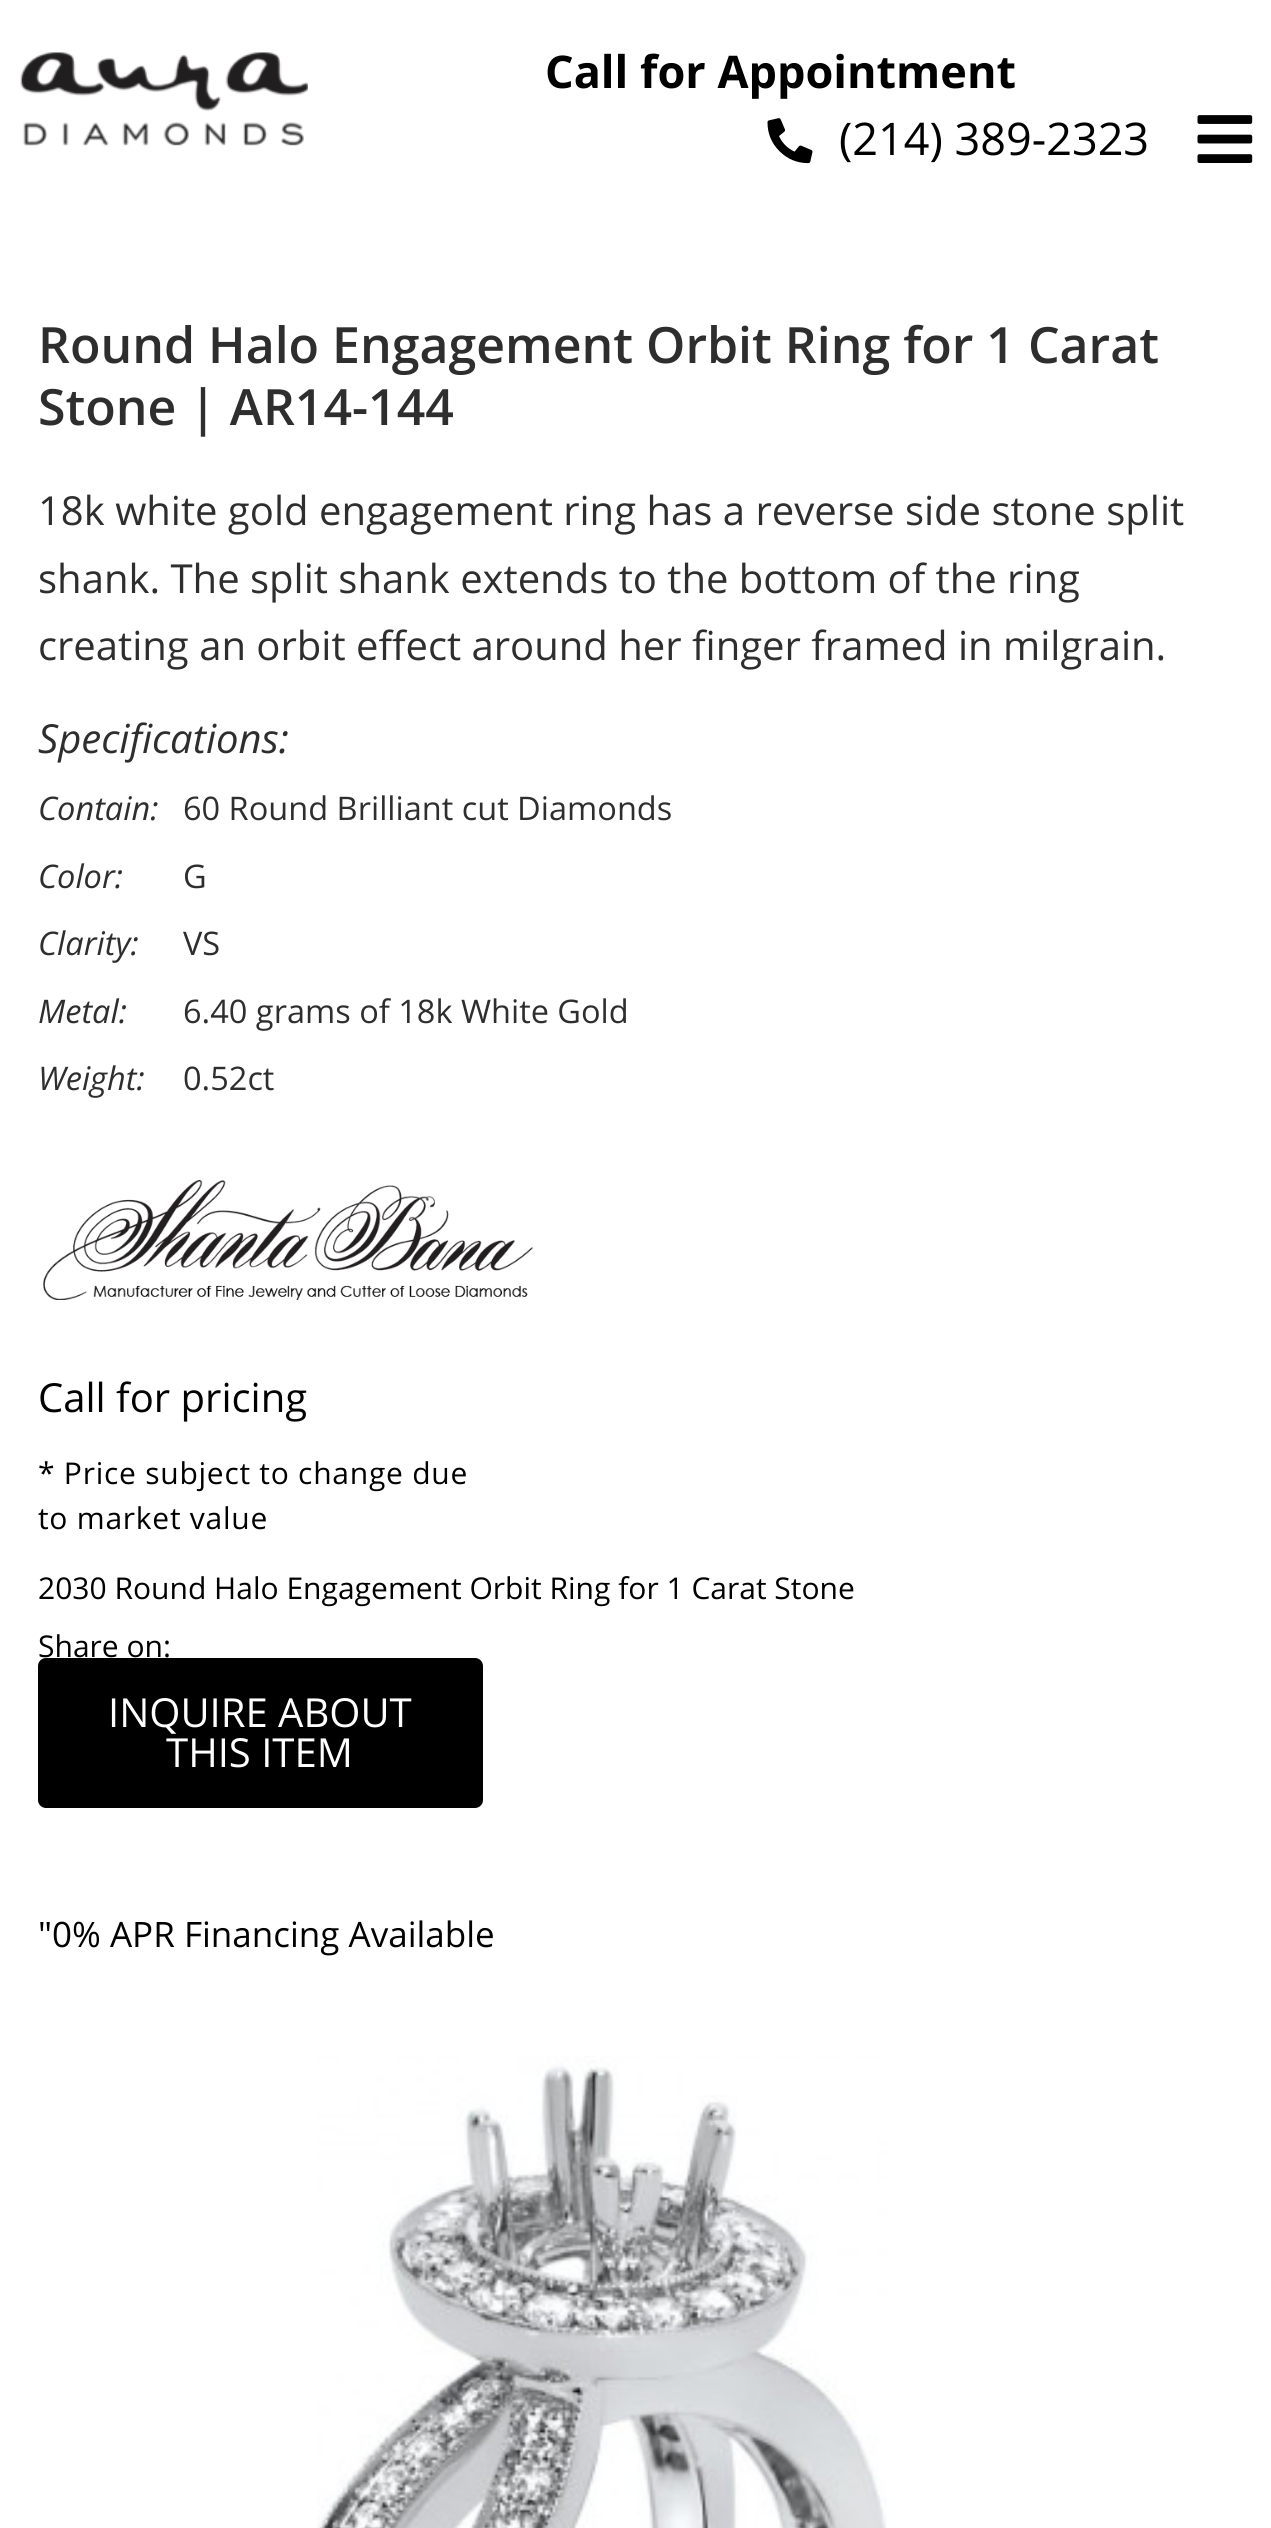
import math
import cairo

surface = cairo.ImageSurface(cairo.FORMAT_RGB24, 1271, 2528)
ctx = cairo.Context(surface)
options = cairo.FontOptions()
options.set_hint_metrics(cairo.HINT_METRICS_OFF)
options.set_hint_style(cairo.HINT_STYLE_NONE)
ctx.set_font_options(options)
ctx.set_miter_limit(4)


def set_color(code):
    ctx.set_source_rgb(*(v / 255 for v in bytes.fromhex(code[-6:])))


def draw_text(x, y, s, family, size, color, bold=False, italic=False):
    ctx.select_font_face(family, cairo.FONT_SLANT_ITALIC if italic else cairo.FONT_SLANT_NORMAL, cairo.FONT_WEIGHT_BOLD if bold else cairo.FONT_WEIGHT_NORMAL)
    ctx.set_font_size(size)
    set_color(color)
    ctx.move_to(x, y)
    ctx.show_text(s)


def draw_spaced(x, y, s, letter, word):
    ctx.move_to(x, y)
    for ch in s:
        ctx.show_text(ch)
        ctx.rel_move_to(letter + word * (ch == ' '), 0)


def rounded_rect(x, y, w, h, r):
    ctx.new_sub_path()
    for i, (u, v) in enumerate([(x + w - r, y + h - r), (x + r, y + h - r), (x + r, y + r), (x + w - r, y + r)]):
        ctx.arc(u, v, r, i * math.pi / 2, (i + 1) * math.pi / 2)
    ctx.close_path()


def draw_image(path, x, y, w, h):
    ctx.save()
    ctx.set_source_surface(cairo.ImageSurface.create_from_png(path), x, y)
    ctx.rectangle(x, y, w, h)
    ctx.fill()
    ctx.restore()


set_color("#ffffff")
ctx.paint()
draw_image("assets/img1.png", 20, 52, 288, 94)
draw_text(545, 88, "Call for Appointment", "Open Sans", 45, "#000000", bold=True)
draw_image("assets/img2.png", 767, 118, 46, 46)
draw_text(839, 155, "(214) 389-2323", "Open Sans", 45, "#000000")
draw_image("assets/img3.png", 1197, 115, 56, 48)
draw_text(38, 363, "Round Halo Engagement Orbit Ring for 1 Carat", "Open Sans SemiBold", 50, "#2e2e2e")
draw_text(38, 425, "Stone | AR14-144", "Open Sans SemiBold", 50, "#2e2e2e")
draw_text(38, 525, "18k white gold engagement ring has a reverse side stone split", "Open Sans", 40, "#2e2e2e")
draw_text(38, 593, "shank. The split shank extends to the bottom of the ring", "Open Sans", 40, "#2e2e2e")
draw_text(38, 660, "creating an orbit effect around her finger framed in milgrain.", "Open Sans", 40, "#2e2e2e")
draw_text(38, 753, "Specifications:", "Open Sans", 40, "#2e2e2e", italic=True)
draw_text(38, 820, "Contain:", "Open Sans", 32.5, "#2e2e2e", italic=True)
draw_text(183, 820, "60 Round Brilliant cut Diamonds", "Open Sans", 32.5, "#2e2e2e")
draw_text(38, 888, "Color:", "Open Sans", 32.5, "#2e2e2e", italic=True)
draw_text(183, 888, "G", "Open Sans", 32.5, "#2e2e2e")
draw_text(38, 955, "Clarity:", "Open Sans", 32.5, "#2e2e2e", italic=True)
draw_text(183, 955, "VS", "Open Sans", 32.5, "#2e2e2e")
draw_text(38, 1023, "Metal:", "Open Sans", 32.5, "#2e2e2e", italic=True)
draw_text(183, 1023, "6.40 grams of 18k White Gold", "Open Sans", 32.5, "#2e2e2e")
draw_text(38, 1090, "Weight:", "Open Sans", 32.5, "#2e2e2e", italic=True)
draw_text(183, 1090, "0.52ct", "Open Sans", 32.5, "#2e2e2e")
draw_image("assets/img4.png", 43, 1180, 490, 120)
draw_text(38, 1412, "Call for pricing", "Open Sans", 40, "#000000")
ctx.set_font_size(30)
draw_spaced(38, 1484, "* Price subject to change due", 0.75, 0)
draw_spaced(38, 1529, "to market value", 0.75, 0)
draw_text(38, 1599, "2030 Round Halo Engagement Orbit Ring for 1 Carat Stone", "Open Sans", 30, "#000000")
draw_text(38, 1657, "Share on:", "Open Sans", 30, "#000000")
rounded_rect(38, 1658, 445, 150, 8)
ctx.fill()
draw_text(108, 1727, "INQUIRE ABOUT", "Open Sans", 40, "#ffffff")
draw_text(166, 1767, "THIS ITEM", "Open Sans", 40, "#ffffff")
draw_text(38, 1947, "\"0% APR Financing Available", "Open Sans", 35, "#000000")
draw_image("assets/img5.png", 317, 2056, 570, 472)
surface.write_to_png("output.png")
